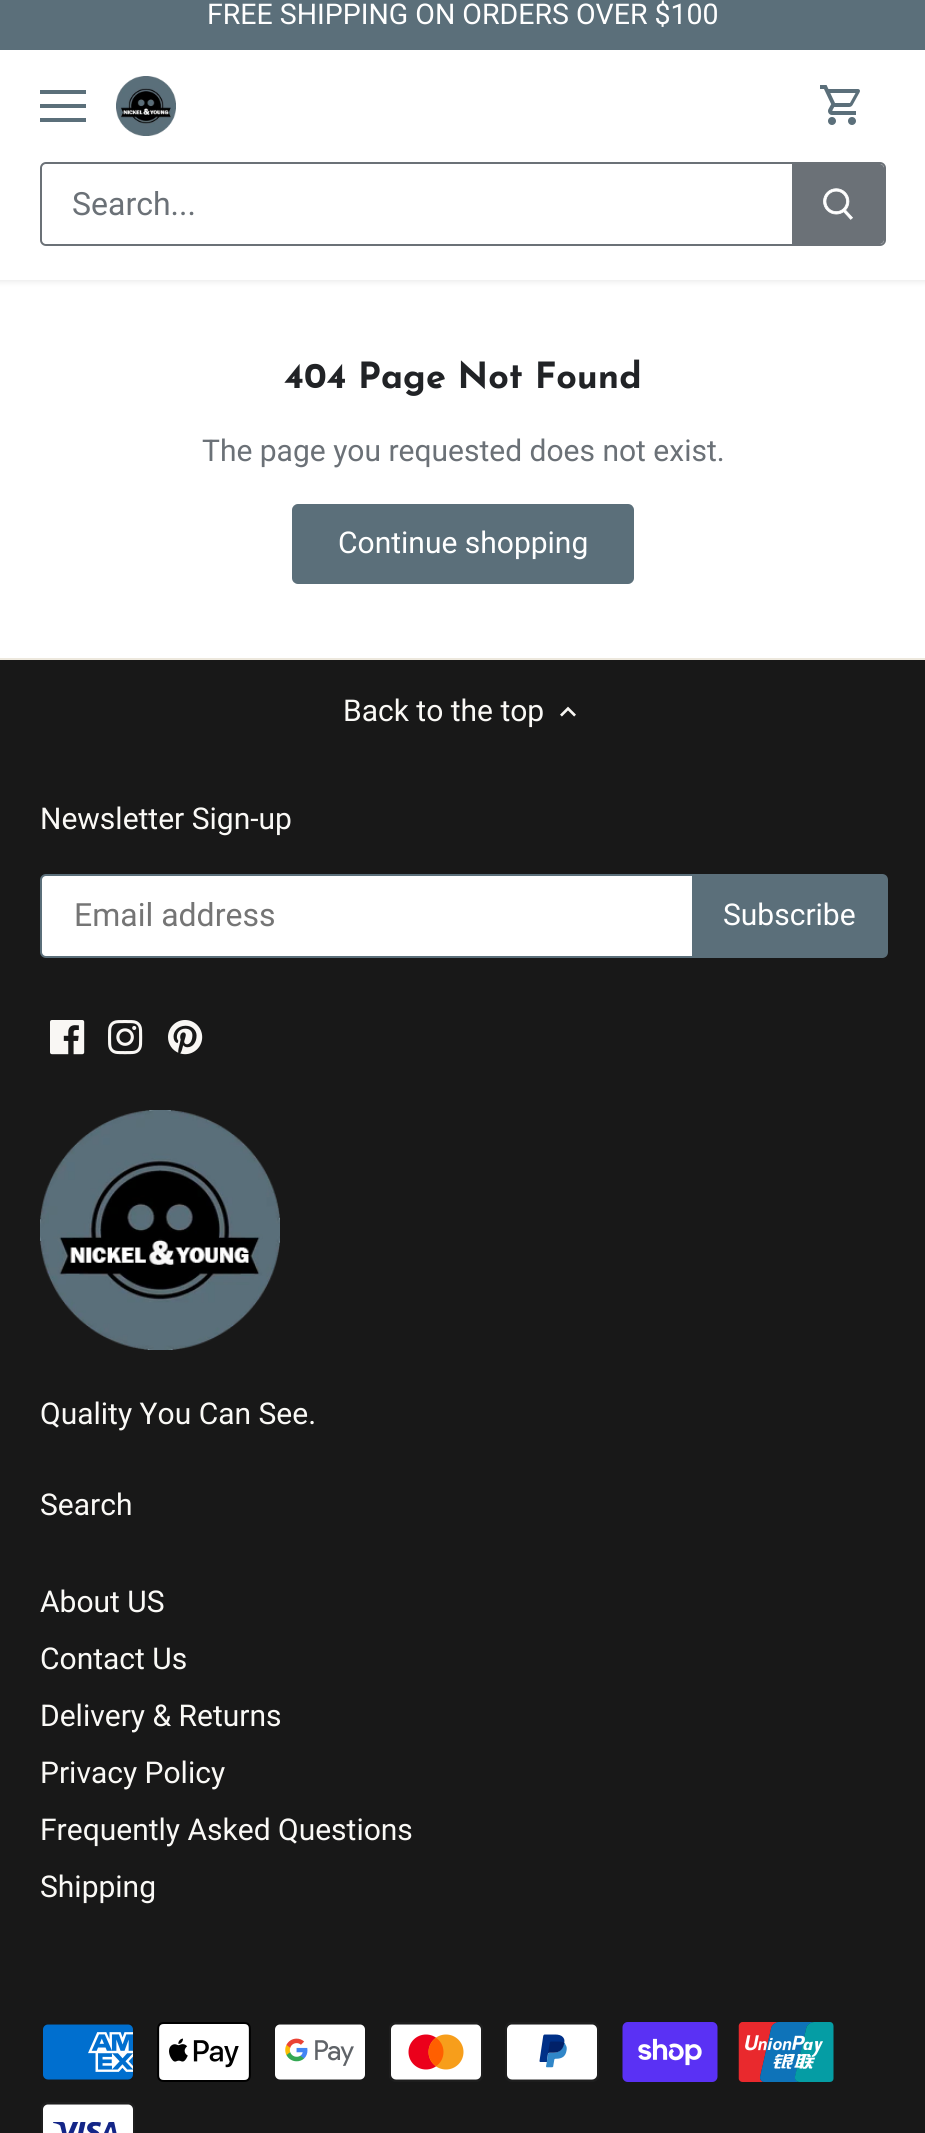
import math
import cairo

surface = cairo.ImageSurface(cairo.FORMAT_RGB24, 925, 2133)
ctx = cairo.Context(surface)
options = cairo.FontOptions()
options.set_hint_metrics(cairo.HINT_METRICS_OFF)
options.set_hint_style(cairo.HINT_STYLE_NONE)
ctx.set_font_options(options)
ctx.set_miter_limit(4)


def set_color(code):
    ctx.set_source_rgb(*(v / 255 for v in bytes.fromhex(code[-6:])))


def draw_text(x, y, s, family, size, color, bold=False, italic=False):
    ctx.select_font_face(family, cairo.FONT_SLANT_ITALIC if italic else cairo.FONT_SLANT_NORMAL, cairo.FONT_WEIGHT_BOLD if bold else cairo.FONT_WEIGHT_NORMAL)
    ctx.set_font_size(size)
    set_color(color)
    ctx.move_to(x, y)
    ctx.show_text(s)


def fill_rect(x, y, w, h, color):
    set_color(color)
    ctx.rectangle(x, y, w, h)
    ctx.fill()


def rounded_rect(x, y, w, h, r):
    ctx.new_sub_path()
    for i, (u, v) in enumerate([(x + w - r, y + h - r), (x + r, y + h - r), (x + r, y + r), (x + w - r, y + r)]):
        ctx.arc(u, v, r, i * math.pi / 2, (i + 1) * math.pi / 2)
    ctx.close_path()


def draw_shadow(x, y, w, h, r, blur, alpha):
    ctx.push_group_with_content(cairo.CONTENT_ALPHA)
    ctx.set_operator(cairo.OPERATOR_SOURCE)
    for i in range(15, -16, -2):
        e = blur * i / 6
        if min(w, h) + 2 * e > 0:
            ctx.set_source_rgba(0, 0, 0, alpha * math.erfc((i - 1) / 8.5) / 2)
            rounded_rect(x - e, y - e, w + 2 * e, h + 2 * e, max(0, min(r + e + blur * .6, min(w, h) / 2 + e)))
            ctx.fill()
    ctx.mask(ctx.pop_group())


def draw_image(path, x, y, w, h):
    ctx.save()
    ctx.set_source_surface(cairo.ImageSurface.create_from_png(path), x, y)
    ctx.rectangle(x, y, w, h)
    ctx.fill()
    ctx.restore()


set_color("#181818")
ctx.paint()
fill_rect(0, 280, 925, 378, "#ffffff")
set_color("#000000")
draw_shadow(-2, 48, 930, 234, 0, 3, 0.08)
fill_rect(0, 0, 925, 50, "#5b6f7a")
draw_text(207, 24, "FREE SHIPPING ON ORDERS OVER $100", "Roboto", 28.5, "#ffffff")
fill_rect(0, 50, 925, 230, "#ffffff")
fill_rect(40, 90, 46, 4, "#5b6f7a")
fill_rect(40, 104, 46, 4, "#5b6f7a")
fill_rect(40, 118, 46, 4, "#5b6f7a")
draw_image("assets/img1.png", 116, 76, 60, 60)
draw_image("assets/img2.png", 820, 85, 40, 40)
rounded_rect(41, 163, 844, 82, 5)
set_color("#6b7177")
ctx.stroke()
set_color("#ffffff")
ctx.new_path()
ctx.move_to(48, 164)
ctx.line_to(794, 164)
ctx.line_to(794, 244)
ctx.line_to(48, 244)
ctx.curve_to(44.5, 244, 42, 241.5, 42, 238)
ctx.line_to(42, 170)
ctx.curve_to(42, 166.5, 44.5, 164, 48, 164)
ctx.close_path()
ctx.fill()
draw_text(72, 215, "Search...", "Roboto", 32, "#6b7177")
ctx.new_path()
ctx.move_to(792, 164)
ctx.line_to(880, 164)
ctx.curve_to(882, 164, 884, 166, 884, 168)
ctx.line_to(884, 240)
ctx.curve_to(884, 242, 882, 244, 880, 244)
ctx.line_to(792, 244)
ctx.close_path()
ctx.fill()
draw_image("assets/img3.png", 823, 188, 30, 32)
draw_text(284, 388, "404 Page Not Found", "Josefin Sans", 36, "#212326", bold=True)
draw_text(202, 461, "The page you requested does not exist.", "Roboto", 30, "#6b7177")
set_color("#5b6f7a")
rounded_rect(294, 506, 338, 76, 4)
ctx.fill_preserve()
ctx.set_line_width(4)
ctx.stroke()
draw_text(338, 553, "Continue shopping", "Roboto", 30, "#ffffff")
fill_rect(0, 658, 925, 2, "#ede8dd")
draw_text(343, 721, "Back to the top", "Roboto", 30, "#faf9f6")
draw_image("assets/img4.png", 560, 706, 16, 11)
draw_text(40, 829, "Newsletter Sign-up", "Roboto", 30, "#faf9f6")
set_color("#ffffff")
rounded_rect(41, 875, 844, 82, 5)
ctx.fill_preserve()
set_color("#5b6f7a")
ctx.set_line_width(2)
ctx.stroke()
draw_text(74, 926, "Email address", "Roboto", 32, "#757575")
set_color("#5b6f7a")
ctx.new_path()
ctx.move_to(693, 875)
ctx.line_to(882, 875)
ctx.curve_to(885, 875, 887, 877, 887, 880)
ctx.line_to(887, 952)
ctx.curve_to(887, 955, 885, 957, 882, 957)
ctx.line_to(693, 957)
ctx.close_path()
ctx.fill_preserve()
ctx.stroke()
draw_text(723, 925, "Subscribe", "Roboto", 30, "#ffffff")
draw_image("assets/img5.png", 50, 1020, 35, 35)
draw_image("assets/img6.png", 108, 1020, 35, 35)
draw_image("assets/img7.png", 168, 1020, 35, 35)
draw_image("assets/img8.png", 40, 1110, 240, 240)
draw_text(40, 1424, "Quality You Can See.", "Roboto", 30, "#faf9f6")
draw_text(40, 1515, "Search", "Roboto", 30, "#faf9f6")
draw_text(40, 1612, "About US", "Roboto", 30, "#faf9f6")
draw_text(40, 1669, "Contact Us", "Roboto", 30, "#faf9f6")
draw_text(40, 1726, "Delivery & Returns", "Roboto", 30, "#faf9f6")
draw_text(40, 1783, "Privacy Policy", "Roboto", 30, "#faf9f6")
draw_text(40, 1840, "Frequently Asked Questions", "Roboto", 30, "#faf9f6")
draw_text(40, 1897, "Shipping", "Roboto", 30, "#faf9f6")
draw_image("assets/img9.png", 43, 2024, 90, 56)
draw_image("assets/img10.png", 157, 2022, 94, 60)
draw_image("assets/img11.png", 275, 2024, 90, 56)
draw_image("assets/img12.png", 389, 2022, 94, 60)
draw_image("assets/img13.png", 505, 2022, 94, 60)
draw_image("assets/img14.png", 622, 2022, 96, 60)
draw_image("assets/img15.png", 738, 2022, 96, 60)
draw_image("assets/img16.png", 41, 2102, 94, 31)
surface.write_to_png("output.png")
